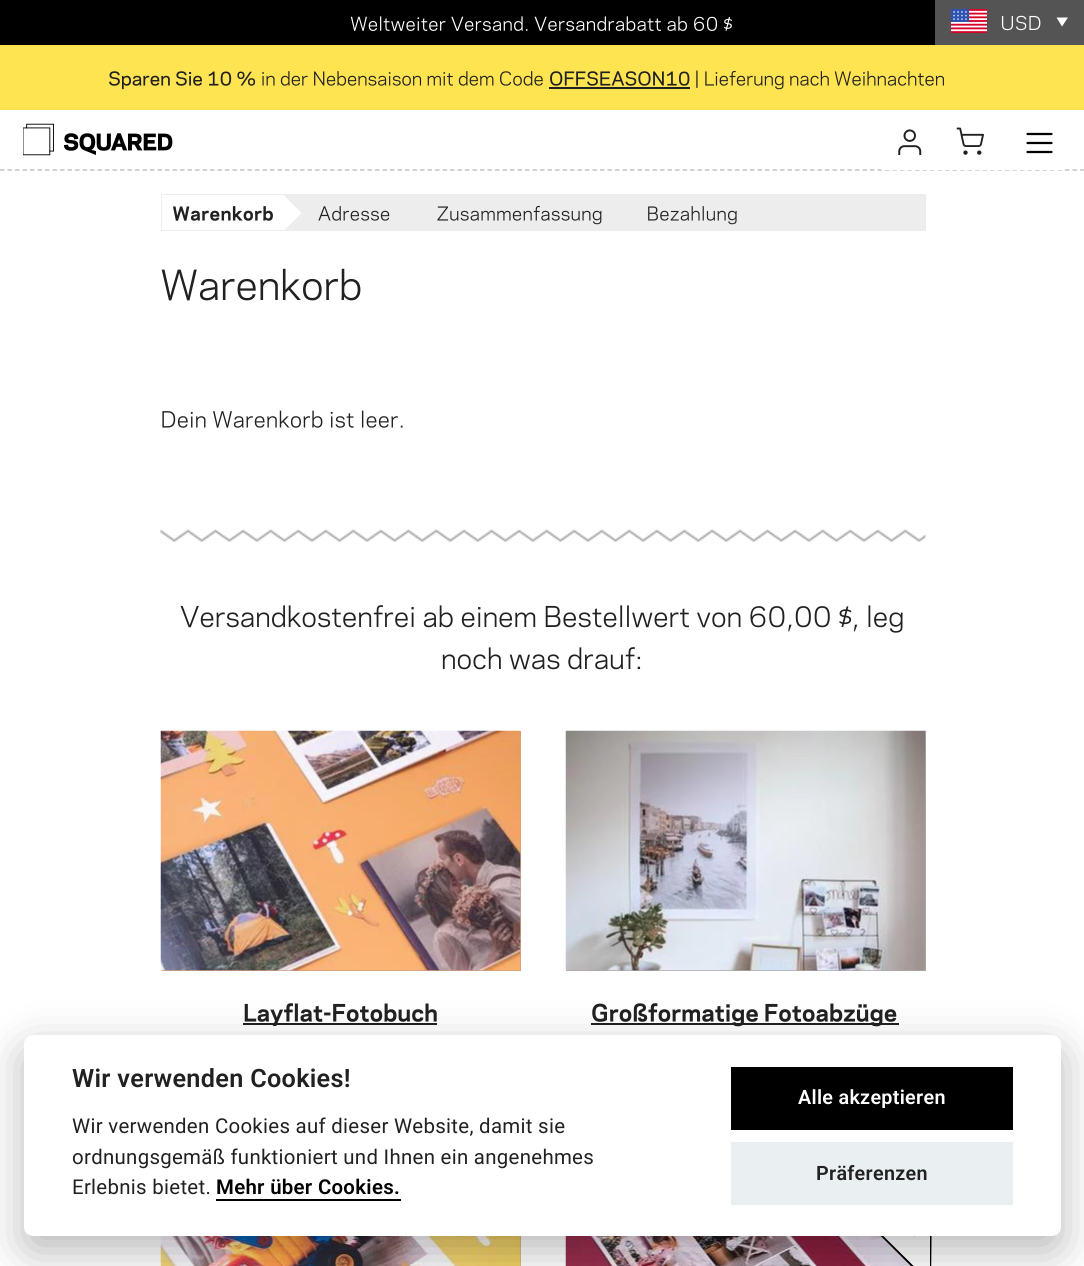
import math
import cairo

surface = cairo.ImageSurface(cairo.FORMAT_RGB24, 1084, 1266)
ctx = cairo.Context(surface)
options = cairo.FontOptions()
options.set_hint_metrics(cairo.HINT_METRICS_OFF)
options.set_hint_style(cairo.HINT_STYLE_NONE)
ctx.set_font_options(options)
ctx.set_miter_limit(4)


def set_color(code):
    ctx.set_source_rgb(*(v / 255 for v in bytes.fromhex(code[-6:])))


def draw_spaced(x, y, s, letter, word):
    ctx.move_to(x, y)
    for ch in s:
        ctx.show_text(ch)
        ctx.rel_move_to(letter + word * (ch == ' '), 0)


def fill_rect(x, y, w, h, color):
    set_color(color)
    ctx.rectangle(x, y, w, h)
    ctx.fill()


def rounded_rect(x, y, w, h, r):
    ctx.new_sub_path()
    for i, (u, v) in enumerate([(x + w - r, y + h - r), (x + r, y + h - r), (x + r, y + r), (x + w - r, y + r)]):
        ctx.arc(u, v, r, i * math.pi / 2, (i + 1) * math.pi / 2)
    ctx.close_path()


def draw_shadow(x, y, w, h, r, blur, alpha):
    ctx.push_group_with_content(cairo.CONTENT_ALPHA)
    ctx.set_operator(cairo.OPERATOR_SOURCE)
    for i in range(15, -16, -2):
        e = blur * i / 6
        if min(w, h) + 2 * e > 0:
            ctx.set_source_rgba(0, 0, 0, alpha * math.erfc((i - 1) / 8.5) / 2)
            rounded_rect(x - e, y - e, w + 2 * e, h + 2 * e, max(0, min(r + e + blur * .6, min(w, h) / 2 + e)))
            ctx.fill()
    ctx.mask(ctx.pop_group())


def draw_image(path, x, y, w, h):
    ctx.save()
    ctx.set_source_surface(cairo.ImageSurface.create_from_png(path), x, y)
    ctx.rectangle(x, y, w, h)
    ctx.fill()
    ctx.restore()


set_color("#ffffff")
ctx.paint()
fill_rect(0, 0, 935, 45, "#000000")
draw_image("assets/img1.png", 350, 16, 382, 15)
fill_rect(935, 0, 149, 45, "#545454")
draw_image("assets/img2.png", 951, 9, 36, 24)
draw_image("assets/img3.png", 1001, 15, 40, 16)
set_color("#ffffff")
ctx.new_path()
ctx.move_to(1062, 26.5)
ctx.line_to(1068, 17.5)
ctx.line_to(1056.5, 17.5)
ctx.close_path()
ctx.fill()
fill_rect(0, 45, 1084, 65, "#ffe452")
draw_image("assets/img4.png", 109, 71, 147, 19)
draw_image("assets/img5.png", 262, 71, 281, 15)
draw_image("assets/img6.png", 550, 71, 140, 15)
draw_image("assets/img7.png", 696, 70, 248, 20)
fill_rect(549, 87, 141, 2, "#212121")
ctx.new_path()
ctx.move_to(0, 170)
ctx.line_to(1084.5, 170)
set_color("#c5c5c5")
ctx.set_line_width(1.5)
ctx.set_dash([4.5, 3])
ctx.stroke()
draw_image("assets/img8.png", 23, 123, 150, 33)
fill_rect(881, 169, 181, 1, "#ffffff")
draw_image("assets/img9.png", 898, 129, 24, 26)
draw_image("assets/img10.png", 956, 127, 28, 28)
ctx.new_path()
ctx.move_to(1027.5, 134)
ctx.line_to(1051.5, 134)
ctx.move_to(1027.5, 143)
ctx.line_to(1051.5, 143)
ctx.move_to(1027.5, 152)
ctx.line_to(1051.5, 152)
set_color("#000000")
ctx.set_line_width(2.2)
ctx.set_line_cap(cairo.LINE_CAP_ROUND)
ctx.set_line_join(cairo.LINE_JOIN_ROUND)
ctx.set_dash([])
ctx.stroke()
fill_rect(161, 194, 765, 37, "#ededed")
fill_rect(162, 195, 122, 35, "#ffffff")
draw_image("assets/img11.png", 173, 206, 100, 15)
ctx.new_path()
ctx.move_to(283.5, 231)
ctx.line_to(283.5, 195)
ctx.line_to(301.5, 213)
ctx.close_path()
ctx.fill()
draw_image("assets/img12.png", 318, 206, 72, 15)
draw_image("assets/img13.png", 437, 205, 165, 20)
draw_image("assets/img14.png", 648, 206, 89, 19)
draw_image("assets/img15.png", 161, 268, 200, 33)
draw_image("assets/img16.png", 162, 410, 241, 18)
draw_image("assets/img17.png", 160, 529, 766, 13)
draw_image("assets/img18.png", 180, 605, 561, 23)
draw_image("assets/img19.png", 750, 606, 102, 26)
draw_image("assets/img20.png", 854, 605, 49, 28)
draw_image("assets/img21.png", 442, 647, 199, 23)
fill_rect(161, 731, 360, 240, "#d1a07d")
draw_image("assets/img22.png", 160, 730, 361, 241)
fill_rect(243, 1023, 194, 2, "#212121")
draw_image("assets/img23.png", 244, 1003, 193, 23)
fill_rect(566, 731, 360, 240, "#ada7a9")
draw_image("assets/img24.png", 565, 730, 361, 241)
fill_rect(591, 1023, 308, 2, "#212121")
draw_image("assets/img25.png", 592, 1003, 305, 24)
fill_rect(520, 1236, 1, 30, "#ccb38b")
draw_image("assets/img26.png", 160, 1236, 361, 30)
draw_image("assets/img28.png", 565, 1236, 349, 30)
set_color("#000000")
ctx.new_path()
ctx.move_to(932, 1193)
ctx.line_to(931, 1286)
ctx.line_to(748, 1104)
ctx.line_to(844, 1104)
ctx.close_path()
ctx.move_to(752, 1106)
ctx.line_to(930, 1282)
ctx.line_to(930, 1193)
ctx.line_to(843, 1106)
ctx.close_path()
ctx.fill()
set_color("#ffffff")
ctx.new_path()
ctx.move_to(752, 1106)
ctx.line_to(930, 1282)
ctx.line_to(930, 1193)
ctx.line_to(843, 1106)
ctx.close_path()
ctx.fill()
draw_image("assets/img27.png", 914, 1236, 1, 1)
set_color("#020203")
draw_shadow(24, 1050, 1037, 201, 9, 22.5, 0.28)
set_color("#ffffff")
rounded_rect(24, 1035, 1037, 201, 9)
ctx.fill()
ctx.select_font_face("Roboto SemiBold")
ctx.set_font_size(25.25)
set_color("#212121")
draw_spaced(72, 1087, "Wir verwenden Cookies!", 0.3, 0)
ctx.select_font_face("Roboto")
ctx.set_font_size(20.4)
draw_spaced(72, 1133, "Wir verwenden Cookies auf dieser Website, damit sie", 0.3, 0)
draw_spaced(72, 1164, "ordnungsgemäß funktioniert und Ihnen ein angenehmes", 0.3, 0)
draw_spaced(72, 1194, "Erlebnis bietet.", 0.3, 0)
ctx.select_font_face("Roboto SemiBold")
set_color("#000000")
draw_spaced(216, 1194, "Mehr über Cookies.", 0.3, 0)
fill_rect(216, 1199, 185, 2, "#000000")
fill_rect(731, 1067, 282, 63, "#000000")
ctx.set_font_size(19.75)
set_color("#ffffff")
draw_spaced(798, 1104, "Alle akzeptieren", 0.3, 0)
fill_rect(731, 1142, 282, 63, "#eaeff2")
set_color("#212121")
draw_spaced(816, 1180, "Präferenzen", 0.3, 0)
surface.write_to_png("output.png")
